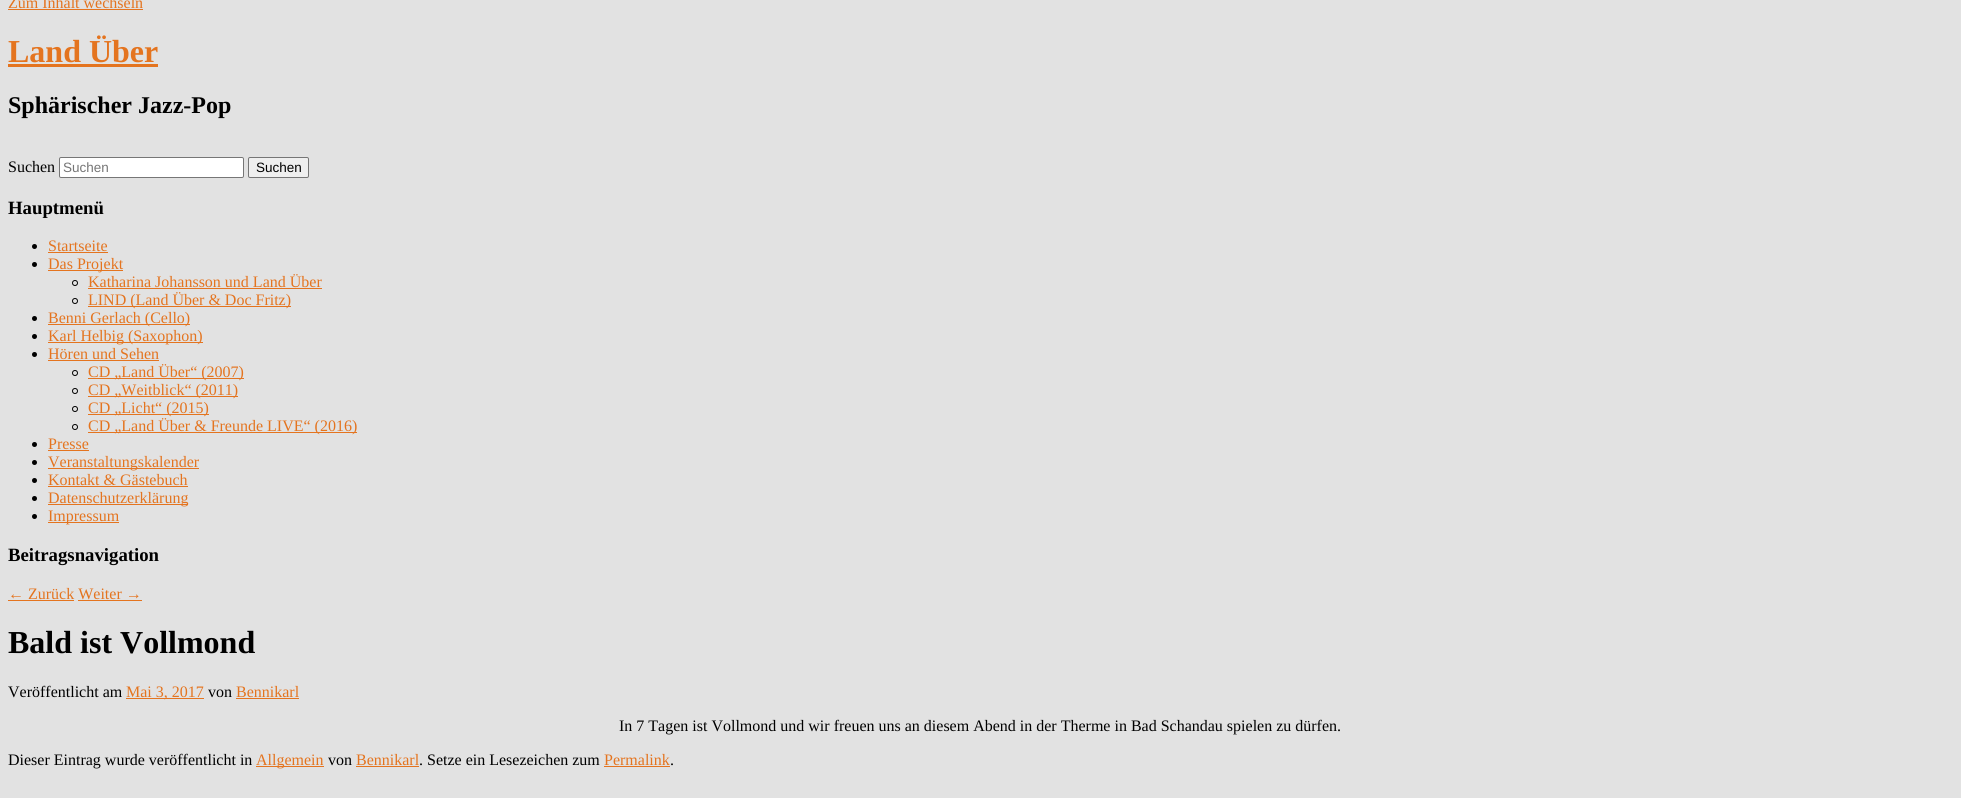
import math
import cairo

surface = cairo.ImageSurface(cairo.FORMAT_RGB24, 1961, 798)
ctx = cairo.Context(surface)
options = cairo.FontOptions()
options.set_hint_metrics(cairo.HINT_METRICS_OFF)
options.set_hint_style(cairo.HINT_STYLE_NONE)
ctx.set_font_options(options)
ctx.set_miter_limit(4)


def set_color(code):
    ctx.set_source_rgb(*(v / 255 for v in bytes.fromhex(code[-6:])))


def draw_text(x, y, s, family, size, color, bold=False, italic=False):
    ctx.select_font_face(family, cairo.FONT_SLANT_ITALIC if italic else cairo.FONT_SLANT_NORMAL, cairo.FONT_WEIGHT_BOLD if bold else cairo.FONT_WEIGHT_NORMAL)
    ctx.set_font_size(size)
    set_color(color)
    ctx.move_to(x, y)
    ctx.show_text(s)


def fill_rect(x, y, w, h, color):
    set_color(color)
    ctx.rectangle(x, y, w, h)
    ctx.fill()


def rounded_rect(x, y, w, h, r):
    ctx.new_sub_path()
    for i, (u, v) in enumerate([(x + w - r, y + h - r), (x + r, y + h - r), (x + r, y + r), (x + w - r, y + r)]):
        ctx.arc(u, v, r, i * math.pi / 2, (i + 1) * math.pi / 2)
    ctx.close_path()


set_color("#e2e2e2")
ctx.paint()
draw_text(8, 8, "Zum Inhalt wechseln", "Liberation Serif", 16, "#e4741f")
fill_rect(8, 9, 135, 1, "#e4741f")
draw_text(8, 62, "Land Über", "Liberation Serif", 32, "#e4741f", bold=True)
fill_rect(8, 64, 150, 3, "#e4741f")
draw_text(8, 113, "Sphärischer Jazz-Pop", "Liberation Serif", 24, "#000000", bold=True)
draw_text(8, 172, "Suchen", "Liberation Serif", 16, "#000000")
set_color("#ffffff")
rounded_rect(59.5, 157.5, 184, 20, 1.5)
ctx.fill_preserve()
set_color("#767676")
ctx.set_line_width(1)
ctx.stroke()
draw_text(63, 172, "Suchen", "Liberation Sans", 13.5, "#757575")
set_color("#efefef")
rounded_rect(248.5, 157.5, 60, 20, 1.5)
ctx.fill_preserve()
set_color("#767676")
ctx.stroke()
draw_text(256, 172, "Suchen", "Liberation Sans", 13.5, "#000000")
draw_text(8, 214, "Hauptmenü", "Liberation Serif", 18.75, "#000000", bold=True)
ctx.new_path()
ctx.arc(34.5, 246.5, 2.5, 0, 2 * math.pi)
ctx.fill()
draw_text(48, 251, "Startseite", "Liberation Serif", 16, "#e4741f")
fill_rect(48, 252, 60, 1, "#e4741f")
set_color("#000000")
ctx.new_path()
ctx.arc(34.5, 264.5, 2.5, 0, 2 * math.pi)
ctx.fill()
fill_rect(48, 270, 75, 1, "#e4741f")
draw_text(48, 269, "Das Projekt", "Liberation Serif", 16, "#e4741f")
ctx.new_path()
ctx.arc(75, 283, 2.5, 0, 2 * math.pi)
set_color("#000000")
ctx.stroke()
draw_text(88, 287, "Katharina Johansson und Land Über", "Liberation Serif", 16, "#e4741f")
fill_rect(88, 288, 234, 1, "#e4741f")
ctx.new_path()
ctx.arc(75, 301, 2.5, 0, 2 * math.pi)
set_color("#000000")
ctx.stroke()
fill_rect(88, 306, 203, 1, "#e4741f")
draw_text(88, 305, "LIND (Land Über & Doc Fritz)", "Liberation Serif", 16, "#e4741f")
set_color("#000000")
ctx.new_path()
ctx.arc(34.5, 318.5, 2.5, 0, 2 * math.pi)
ctx.fill()
fill_rect(48, 324, 142, 1, "#e4741f")
draw_text(48, 323, "Benni Gerlach (Cello)", "Liberation Serif", 16, "#e4741f")
set_color("#000000")
ctx.new_path()
ctx.arc(34.5, 336.5, 2.5, 0, 2 * math.pi)
ctx.fill()
fill_rect(48, 342, 155, 1, "#e4741f")
draw_text(48, 341, "Karl Helbig (Saxophon)", "Liberation Serif", 16, "#e4741f")
set_color("#000000")
ctx.new_path()
ctx.arc(34.5, 354.5, 2.5, 0, 2 * math.pi)
ctx.fill()
draw_text(48, 359, "Hören und Sehen", "Liberation Serif", 16, "#e4741f")
fill_rect(48, 360, 111, 1, "#e4741f")
ctx.new_path()
ctx.arc(75, 373, 2.5, 0, 2 * math.pi)
set_color("#000000")
ctx.stroke()
fill_rect(88, 378, 156, 1, "#e4741f")
draw_text(88, 377, "CD „Land Über“ (2007)", "Liberation Serif", 16, "#e4741f")
ctx.new_path()
ctx.arc(75, 391, 2.5, 0, 2 * math.pi)
set_color("#000000")
ctx.stroke()
fill_rect(88, 396, 150, 1, "#e4741f")
draw_text(88, 395, "CD „Weitblick“ (2011)", "Liberation Serif", 16, "#e4741f")
ctx.new_path()
ctx.arc(75, 409, 2.5, 0, 2 * math.pi)
set_color("#000000")
ctx.stroke()
fill_rect(88, 414, 121, 1, "#e4741f")
draw_text(88, 413, "CD „Licht“ (2015)", "Liberation Serif", 16, "#e4741f")
ctx.new_path()
ctx.arc(75, 427, 2.5, 0, 2 * math.pi)
set_color("#000000")
ctx.stroke()
fill_rect(88, 432, 269, 1, "#e4741f")
draw_text(88, 431, "CD „Land Über & Freunde LIVE“ (2016)", "Liberation Serif", 16, "#e4741f")
set_color("#000000")
ctx.new_path()
ctx.arc(34.5, 444.5, 2.5, 0, 2 * math.pi)
ctx.fill()
draw_text(48, 449, "Presse", "Liberation Serif", 16, "#e4741f")
fill_rect(48, 450, 41, 1, "#e4741f")
set_color("#000000")
ctx.new_path()
ctx.arc(34.5, 462.5, 2.5, 0, 2 * math.pi)
ctx.fill()
fill_rect(48, 468, 151, 1, "#e4741f")
draw_text(48, 467, "Veranstaltungskalender", "Liberation Serif", 16, "#e4741f")
set_color("#000000")
ctx.new_path()
ctx.arc(34.5, 480.5, 2.5, 0, 2 * math.pi)
ctx.fill()
draw_text(48, 485, "Kontakt & Gästebuch", "Liberation Serif", 16, "#e4741f")
fill_rect(48, 486, 140, 1, "#e4741f")
set_color("#000000")
ctx.new_path()
ctx.arc(34.5, 498.5, 2.5, 0, 2 * math.pi)
ctx.fill()
fill_rect(48, 504, 140, 1, "#e4741f")
draw_text(48, 503, "Datenschutzerklärung", "Liberation Serif", 16, "#e4741f")
set_color("#000000")
ctx.new_path()
ctx.arc(34.5, 516.5, 2.5, 0, 2 * math.pi)
ctx.fill()
fill_rect(48, 522, 71, 1, "#e4741f")
draw_text(48, 521, "Impressum", "Liberation Serif", 16, "#e4741f")
draw_text(8, 561, "Beitragsnavigation", "Liberation Serif", 18.75, "#000000", bold=True)
draw_text(8, 599, "← Zurück Weiter →", "Liberation Serif", 16, "#e4741f")
fill_rect(8, 600, 66, 1, "#e4741f")
fill_rect(78, 600, 64, 1, "#e4741f")
draw_text(8, 653, "Bald ist Vollmond", "Liberation Serif", 32, "#000000", bold=True)
draw_text(8, 697, "Veröffentlicht am", "Liberation Serif", 16, "#000000")
fill_rect(126, 698, 78, 1, "#e4741f")
draw_text(126, 697, "Mai 3, 2017", "Liberation Serif", 16, "#e4741f")
draw_text(208, 697, "von", "Liberation Serif", 16, "#000000")
fill_rect(236, 698, 63, 1, "#e4741f")
draw_text(236, 697, "Bennikarl", "Liberation Serif", 16, "#e4741f")
draw_text(619, 731, "In 7 Tagen ist Vollmond und wir freuen uns an diesem Abend in der Therme in Bad Schandau spielen zu dürfen.", "Liberation Serif", 16, "#000000")
draw_text(8, 765, "Dieser Eintrag wurde veröffentlicht in", "Liberation Serif", 16, "#000000")
fill_rect(256, 766, 68, 1, "#e4741f")
draw_text(256, 765, "Allgemein", "Liberation Serif", 16, "#e4741f")
draw_text(328, 765, "von", "Liberation Serif", 16, "#000000")
draw_text(356, 765, "Bennikarl", "Liberation Serif", 16, "#e4741f")
fill_rect(356, 766, 63, 1, "#e4741f")
draw_text(419, 765, ". Setze ein Lesezeichen zum", "Liberation Serif", 16, "#000000")
draw_text(604, 765, "Permalink", "Liberation Serif", 16, "#e4741f")
fill_rect(604, 766, 66, 1, "#e4741f")
draw_text(670, 765, ".", "Liberation Serif", 16, "#000000")
surface.write_to_png("output.png")
